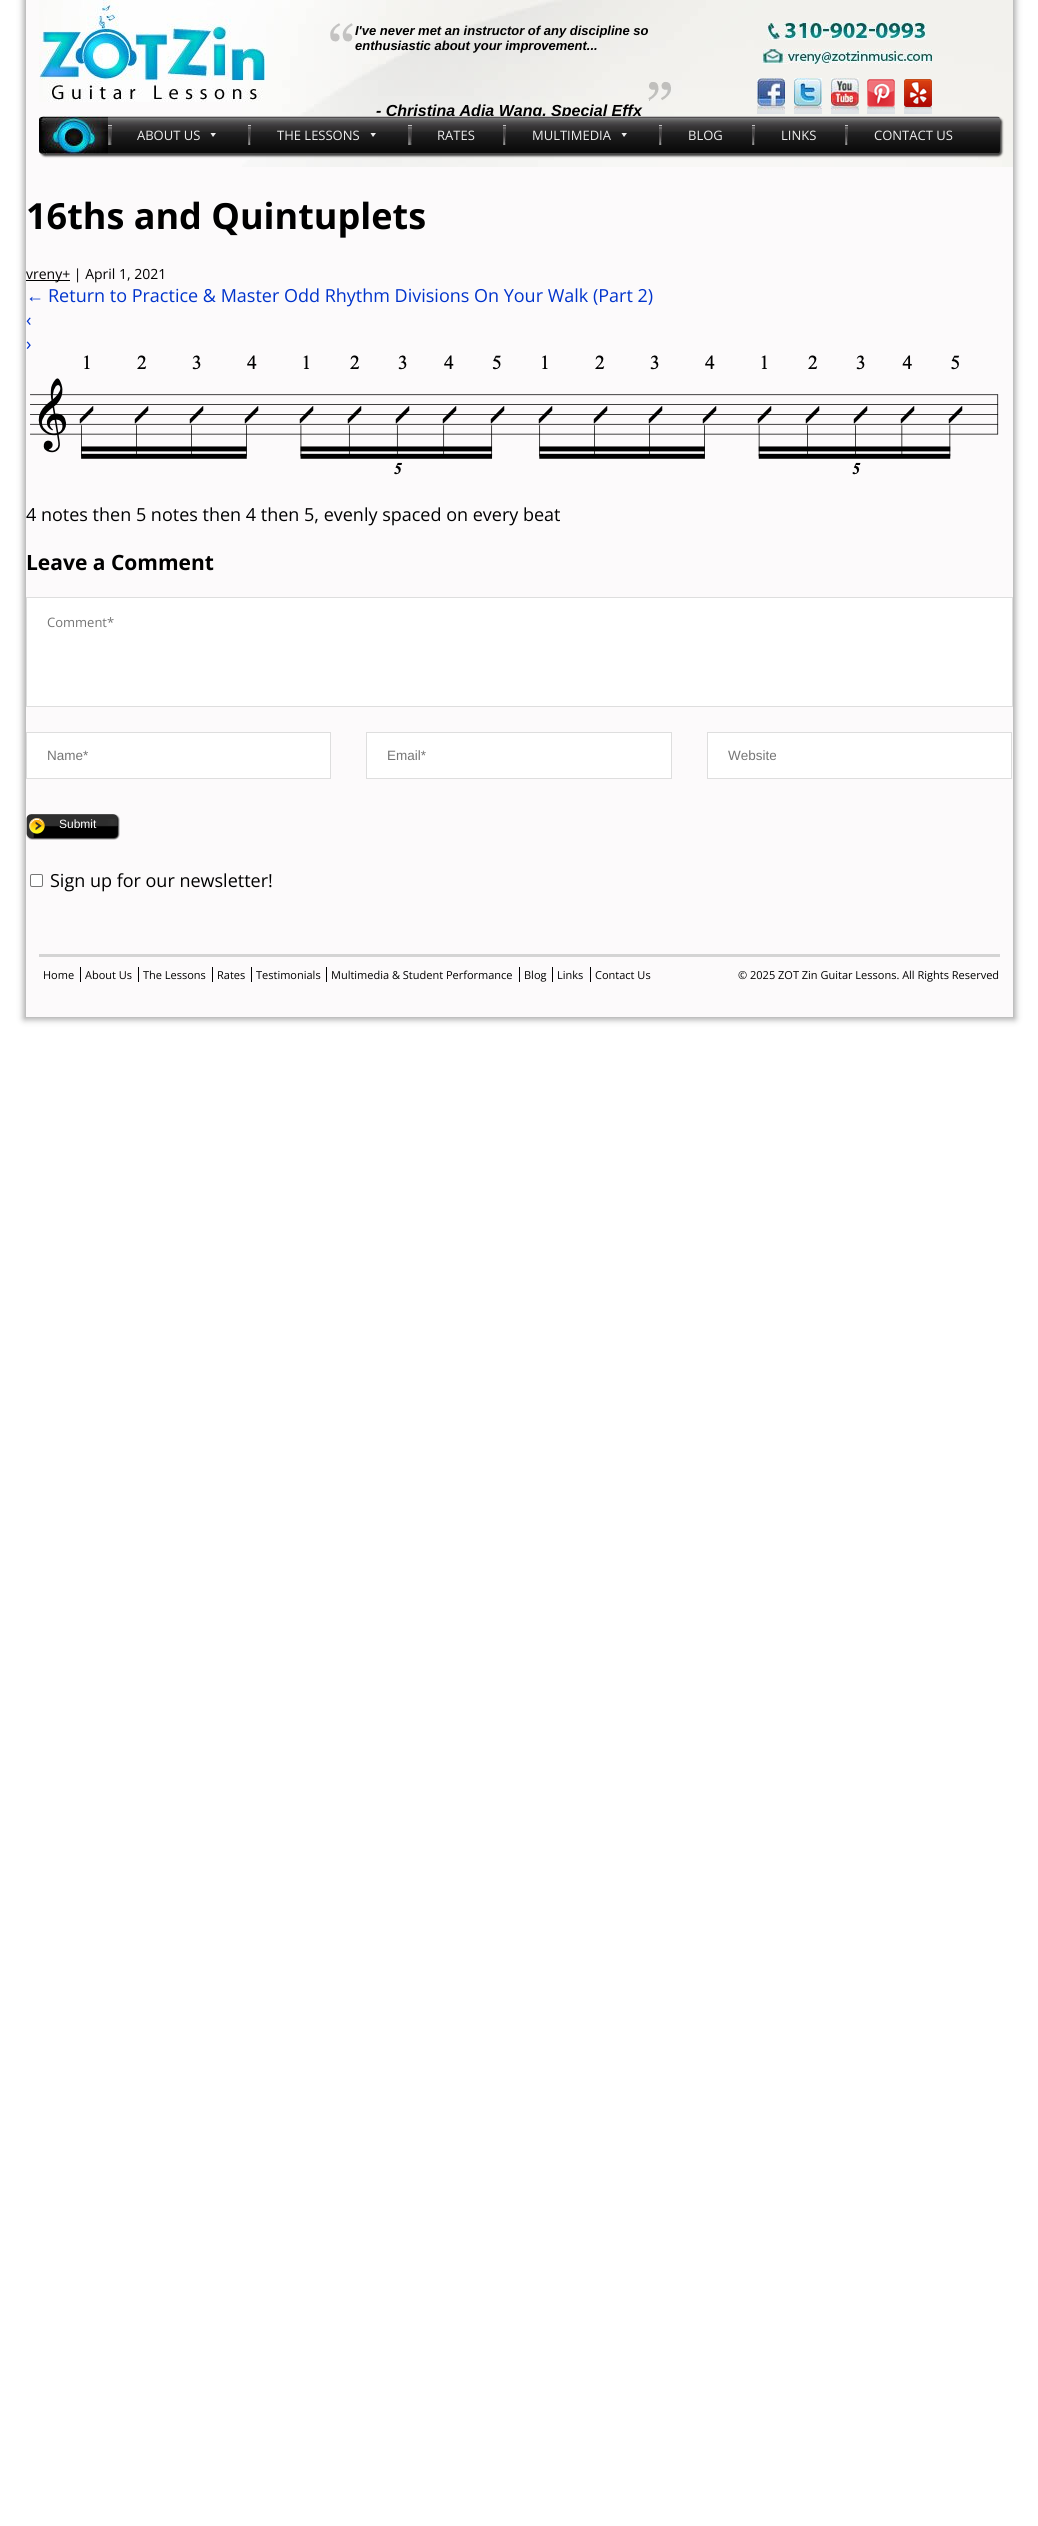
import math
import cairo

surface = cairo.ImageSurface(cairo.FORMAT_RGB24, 1038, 2526)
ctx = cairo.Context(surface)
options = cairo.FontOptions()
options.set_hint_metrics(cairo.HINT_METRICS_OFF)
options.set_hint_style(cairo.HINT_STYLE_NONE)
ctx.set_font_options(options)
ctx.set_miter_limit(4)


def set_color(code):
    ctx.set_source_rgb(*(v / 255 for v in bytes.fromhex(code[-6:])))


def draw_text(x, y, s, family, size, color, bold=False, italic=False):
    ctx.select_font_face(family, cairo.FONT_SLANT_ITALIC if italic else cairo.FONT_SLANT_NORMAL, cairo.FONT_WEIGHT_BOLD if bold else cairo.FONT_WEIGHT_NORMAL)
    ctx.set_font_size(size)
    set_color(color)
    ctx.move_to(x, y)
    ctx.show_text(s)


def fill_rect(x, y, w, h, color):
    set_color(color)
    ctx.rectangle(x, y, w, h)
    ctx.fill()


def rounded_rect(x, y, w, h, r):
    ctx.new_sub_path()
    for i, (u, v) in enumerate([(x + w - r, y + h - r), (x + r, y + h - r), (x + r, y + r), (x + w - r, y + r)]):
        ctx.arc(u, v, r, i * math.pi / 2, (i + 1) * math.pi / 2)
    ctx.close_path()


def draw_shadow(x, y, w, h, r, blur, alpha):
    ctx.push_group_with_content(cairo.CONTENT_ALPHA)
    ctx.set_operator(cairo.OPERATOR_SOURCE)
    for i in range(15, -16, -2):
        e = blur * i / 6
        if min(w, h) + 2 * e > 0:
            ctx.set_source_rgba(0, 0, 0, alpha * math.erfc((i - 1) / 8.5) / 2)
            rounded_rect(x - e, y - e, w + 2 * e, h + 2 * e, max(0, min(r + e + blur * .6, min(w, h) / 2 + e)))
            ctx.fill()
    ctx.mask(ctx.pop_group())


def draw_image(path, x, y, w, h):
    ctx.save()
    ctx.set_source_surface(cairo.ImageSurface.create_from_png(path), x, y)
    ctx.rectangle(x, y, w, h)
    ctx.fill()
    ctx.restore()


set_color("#ffffff")
ctx.paint()
set_color("#919191")
draw_shadow(24, -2, 991, 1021, 0, 3.5, 0.88)
fill_rect(26, 0, 987, 1017, "#fcfafb")
draw_image("assets/img1.png", 242, 0, 771, 167)
draw_image("assets/img2.png", 39, 0, 226, 102)
draw_image("assets/img3.png", 330, 23, 341, 78)
draw_text(355, 35, "I've never met an instructor of any discipline so", "Liberation Sans", 13, "#000000", bold=True, italic=True)
draw_text(355, 50, "enthusiastic about your improvement...", "Liberation Sans", 13, "#000000", bold=True, italic=True)
draw_text(376, 116, "- Christina Adia Wang, Special Effx", "Liberation Sans", 16, "#000000", bold=True, italic=True)
draw_image("assets/img4.png", 767, 22, 159, 18)
draw_image("assets/img5.png", 762, 49, 170, 15)
draw_image("assets/img6.png", 757, 78, 28, 36)
draw_image("assets/img7.png", 794, 78, 28, 36)
draw_image("assets/img8.png", 831, 78, 28, 36)
draw_image("assets/img9.png", 867, 79, 28, 35)
draw_image("assets/img10.png", 904, 79, 28, 35)
set_color("#000000")
draw_shadow(41, 118, 961, 38, 4, 1, 0.75)
draw_image("assets/img11.png", 108, 116, 892, 38)
draw_image("assets/img12.png", 39, 116, 69, 38)
draw_image("assets/img13.png", 108, 125, 4, 20)
draw_text(137, 140, "ABOUT US", "Open Sans", 13, "#eeeeee")
ctx.new_path()
ctx.move_to(216, 133)
ctx.line_to(213, 137)
ctx.line_to(210.5, 133)
ctx.close_path()
ctx.fill()
draw_image("assets/img14.png", 248, 125, 3, 20)
draw_text(277, 140, "THE LESSONS", "Open Sans", 13, "#eeeeee")
ctx.new_path()
ctx.move_to(376, 133)
ctx.line_to(373, 137)
ctx.line_to(370.5, 133)
ctx.close_path()
ctx.fill()
draw_image("assets/img13.png", 408, 125, 4, 20)
draw_text(437, 140, "RATES", "Open Sans", 13, "#eeeeee")
draw_image("assets/img14.png", 503, 125, 3, 20)
draw_text(532, 140, "MULTIMEDIA", "Open Sans", 13, "#eeeeee")
ctx.new_path()
ctx.move_to(627, 133)
ctx.line_to(624, 137)
ctx.line_to(621.5, 133)
ctx.close_path()
ctx.fill()
draw_image("assets/img14.png", 659, 125, 3, 20)
draw_text(688, 140, "BLOG", "Open Sans", 13, "#eeeeee")
draw_image("assets/img14.png", 752, 125, 3, 20)
draw_text(781, 140, "LINKS", "Open Sans", 13, "#eeeeee")
draw_image("assets/img14.png", 845, 125, 3, 20)
draw_text(874, 140, "CONTACT US", "Open Sans", 13, "#eeeeee")
draw_text(26, 229, "16ths and Quintuplets", "Open Sans", 36, "#000000", bold=True)
fill_rect(26, 280, 44, 1, "#000000")
draw_text(26, 279, "vreny+ | April 1, 2021", "Open Sans", 14, "#000000")
draw_text(26, 302, "←", "Liberation Sans", 18, "#0033cc")
draw_text(48, 302, "Return to Practice & Master Odd Rhythm Divisions On Your Walk (Part 2)", "Open Sans", 18, "#0033cc")
draw_text(26, 326, "‹", "Open Sans", 18, "#0033cc")
draw_text(26, 350, "›", "Open Sans", 18, "#0033cc")
draw_image("assets/img15.png", 30, 355, 969, 120)
draw_text(26, 521, "4 notes then 5 notes then 4 then 5, evenly spaced on every beat", "Open Sans", 18, "#000000")
draw_text(26, 570, "Leave a Comment", "Open Sans", 21, "#000000", bold=True)
set_color("#ffffff")
ctx.rectangle(26.5, 597.5, 986, 109)
ctx.fill_preserve()
set_color("#dedede")
ctx.set_line_width(1)
ctx.stroke()
draw_text(47, 627, "Comment*", "Open Sans", 13, "#757575")
set_color("#ffffff")
ctx.rectangle(26.5, 732.5, 304, 46)
ctx.fill_preserve()
set_color("#dedede")
ctx.stroke()
draw_text(47, 760, "Name*", "Liberation Sans", 13.5, "#757575")
set_color("#ffffff")
ctx.rectangle(366.5, 732.5, 305, 46)
ctx.fill_preserve()
set_color("#dedede")
ctx.stroke()
draw_text(387, 760, "Email*", "Liberation Sans", 13.5, "#757575")
set_color("#ffffff")
ctx.rectangle(707.5, 732.5, 304, 46)
ctx.fill_preserve()
set_color("#dedede")
ctx.stroke()
draw_text(728, 760, "Website", "Liberation Sans", 13.5, "#757575")
draw_image("assets/img16.png", 26, 814, 94, 26)
draw_text(59, 828, "Submit", "Liberation Sans", 12, "#ffffff")
rounded_rect(30.5, 874.5, 12, 12, 1.5)
ctx.fill_preserve()
set_color("#767676")
ctx.stroke()
draw_text(50, 887, "Sign up for our newsletter!", "Open Sans", 18, "#000000")
fill_rect(39, 954, 961, 3, "#d4d4d4")
draw_text(43, 979, "Home", "Open Sans", 11, "#000000")
fill_rect(80, 967, 1, 15, "#000000")
draw_text(85, 979, "About Us", "Open Sans", 11, "#000000")
fill_rect(138, 967, 1, 15, "#000000")
draw_text(143, 979, "The Lessons", "Open Sans", 11, "#000000")
fill_rect(212, 967, 1, 15, "#000000")
draw_text(217, 979, "Rates", "Open Sans", 11, "#000000")
fill_rect(251, 967, 1, 15, "#000000")
draw_text(256, 979, "Testimonials", "Open Sans", 11, "#000000")
fill_rect(326, 967, 1, 15, "#000000")
draw_text(331, 979, "Multimedia & Student Performance", "Open Sans", 11, "#000000")
fill_rect(519, 967, 1, 15, "#000000")
draw_text(524, 979, "Blog", "Open Sans", 11, "#000000")
fill_rect(552, 967, 1, 15, "#000000")
draw_text(557, 979, "Links", "Open Sans", 11, "#000000")
fill_rect(590, 967, 1, 15, "#000000")
draw_text(595, 979, "Contact Us", "Open Sans", 11, "#000000")
draw_text(738, 979, "© 2025 ZOT Zin Guitar Lessons. All Rights Reserved", "Open Sans", 11, "#000000")
surface.write_to_png("output.png")
